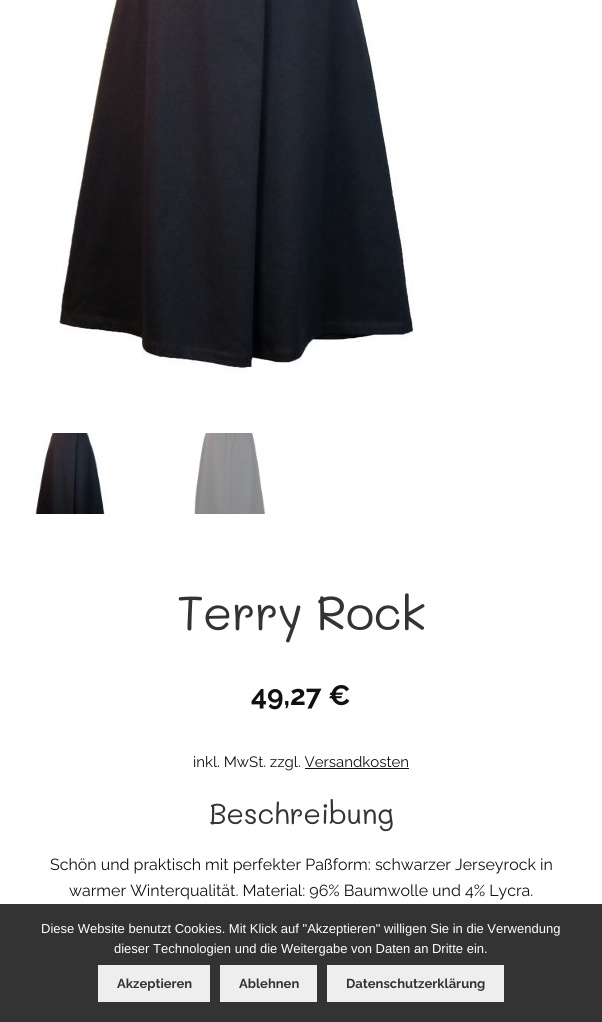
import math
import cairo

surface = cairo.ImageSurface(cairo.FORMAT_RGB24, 602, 1022)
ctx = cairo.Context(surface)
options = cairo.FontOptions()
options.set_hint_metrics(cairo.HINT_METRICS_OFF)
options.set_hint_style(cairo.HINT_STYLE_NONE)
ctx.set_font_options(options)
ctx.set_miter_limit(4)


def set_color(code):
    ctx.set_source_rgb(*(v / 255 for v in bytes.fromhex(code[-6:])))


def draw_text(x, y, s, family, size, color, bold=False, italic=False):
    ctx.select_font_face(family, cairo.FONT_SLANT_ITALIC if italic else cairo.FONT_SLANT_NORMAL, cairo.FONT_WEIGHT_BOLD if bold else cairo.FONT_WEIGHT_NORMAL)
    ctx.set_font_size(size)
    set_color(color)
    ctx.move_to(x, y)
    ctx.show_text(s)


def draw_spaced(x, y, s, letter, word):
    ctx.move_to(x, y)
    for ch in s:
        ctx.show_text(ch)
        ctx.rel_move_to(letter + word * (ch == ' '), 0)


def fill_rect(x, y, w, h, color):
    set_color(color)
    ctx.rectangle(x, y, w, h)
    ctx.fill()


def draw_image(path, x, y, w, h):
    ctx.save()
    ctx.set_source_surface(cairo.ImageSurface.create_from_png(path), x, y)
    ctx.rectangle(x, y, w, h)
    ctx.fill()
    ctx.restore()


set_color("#ffffff")
ctx.paint()
draw_image("assets/img1.png", 55, 0, 359, 373)
draw_image("assets/img2.png", 32, 433, 76, 81)
draw_image("assets/img3.png", 193, 433, 73, 81)
ctx.select_font_face("Mali")
ctx.set_font_size(48)
set_color("#333333")
draw_spaced(177, 630, "Terry Rock", -1, 0)
draw_text(251, 705, "49,27 €", "Raleway Thin", 28, "#111111")
draw_text(193, 767, "inkl. MwSt. zzgl. Versandkosten", "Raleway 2 Thin", 15, "#111111")
fill_rect(305, 768, 104, 1, "#111111")
ctx.select_font_face("Mali")
ctx.set_font_size(28.75)
set_color("#333333")
draw_spaced(209, 824, "Beschreibung", -0.5, 0)
draw_text(50, 870, "Schön und praktisch mit perfekter Paßform: schwarzer Jerseyrock in", "Raleway 2 Thin", 16, "#111111")
draw_text(69, 896, "warmer Winterqualität. Material: 96% Baumwolle und 4% Lycra.", "Raleway 2 Thin", 16, "#111111")
fill_rect(0, 904, 602, 118, "#333333")
draw_text(41, 933, "Diese Website benutzt Cookies. Mit Klick auf \"Akzeptieren\" willigen Sie in die Verwendung", "Liberation Sans", 13, "#ffffff")
draw_text(114, 953, "dieser Technologien und die Weitergabe von Daten an Dritte ein.", "Liberation Sans", 13, "#ffffff")
fill_rect(98, 965, 112, 37, "#eeeeee")
draw_text(117, 988, "Akzeptieren", "Raleway Thin", 13, "#333333")
fill_rect(220, 965, 97, 37, "#eeeeee")
draw_text(239, 988, "Ablehnen", "Raleway Thin", 13, "#333333")
fill_rect(327, 965, 177, 37, "#eeeeee")
draw_text(346, 988, "Datenschutzerklärung", "Raleway Thin", 13, "#333333")
surface.write_to_png("output.png")
